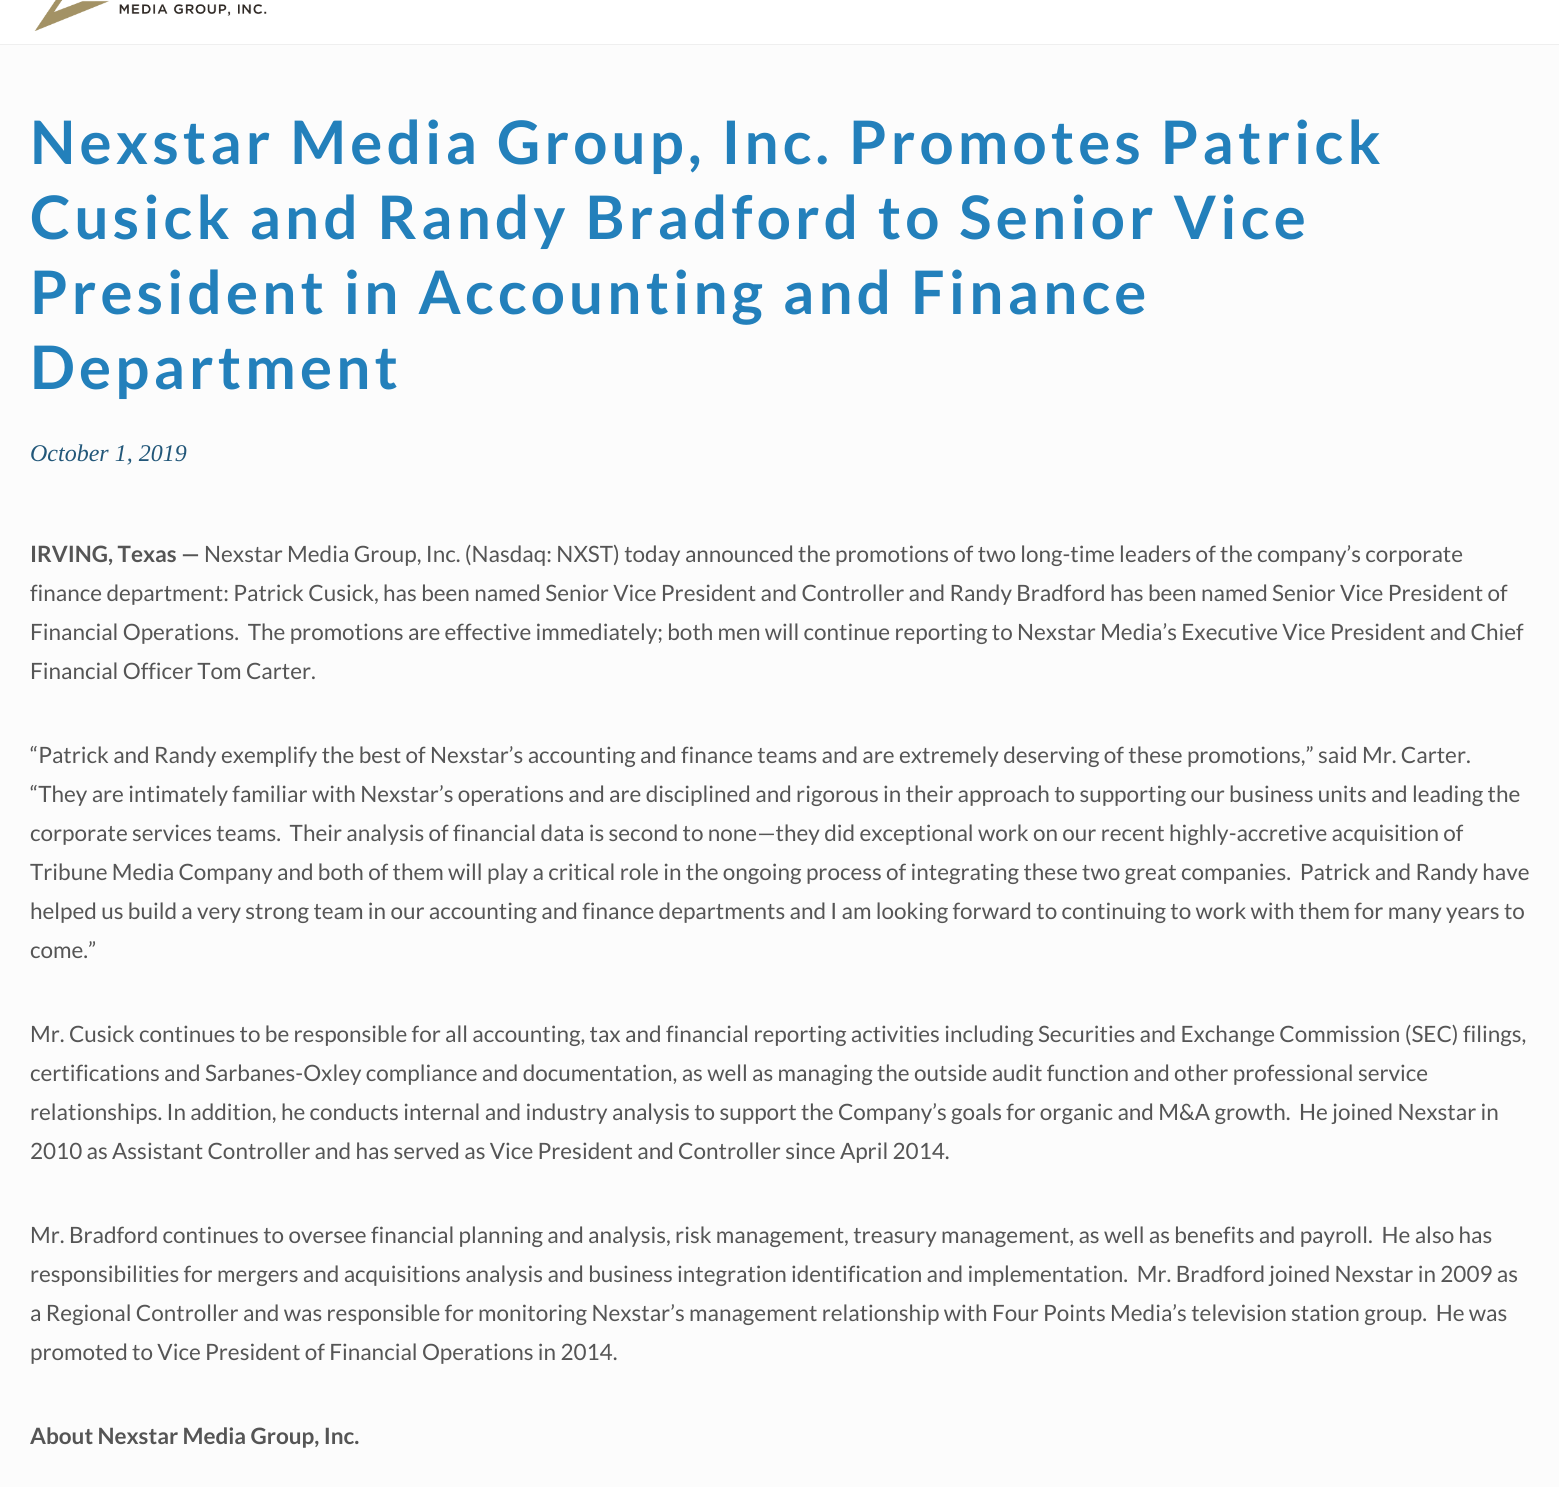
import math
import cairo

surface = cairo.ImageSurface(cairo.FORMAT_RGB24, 1559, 1487)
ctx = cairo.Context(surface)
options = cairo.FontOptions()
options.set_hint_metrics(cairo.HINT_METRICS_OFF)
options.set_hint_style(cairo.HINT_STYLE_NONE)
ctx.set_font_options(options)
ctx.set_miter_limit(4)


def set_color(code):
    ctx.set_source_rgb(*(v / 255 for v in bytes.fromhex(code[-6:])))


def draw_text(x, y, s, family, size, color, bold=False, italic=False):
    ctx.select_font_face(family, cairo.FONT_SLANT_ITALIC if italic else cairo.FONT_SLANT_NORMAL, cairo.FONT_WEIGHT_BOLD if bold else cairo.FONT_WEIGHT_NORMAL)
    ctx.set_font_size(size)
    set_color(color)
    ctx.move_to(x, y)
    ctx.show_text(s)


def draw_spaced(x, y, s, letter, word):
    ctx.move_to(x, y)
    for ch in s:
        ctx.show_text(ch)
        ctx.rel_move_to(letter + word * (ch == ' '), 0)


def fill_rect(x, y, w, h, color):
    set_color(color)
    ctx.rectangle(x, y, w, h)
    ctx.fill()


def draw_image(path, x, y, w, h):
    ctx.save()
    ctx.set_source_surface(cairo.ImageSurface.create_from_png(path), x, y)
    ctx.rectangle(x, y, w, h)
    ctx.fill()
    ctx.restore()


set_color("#ffffff")
ctx.paint()
fill_rect(0, 44, 1559, 1, "#efefef")
draw_image("assets/img1.png", 34, 0, 233, 31)
fill_rect(0, 45, 1559, 1442, "#fcfcfc")
ctx.select_font_face("Lato", cairo.FONT_SLANT_NORMAL, cairo.FONT_WEIGHT_BOLD)
ctx.set_font_size(60)
set_color("#2380bb")
draw_spaced(30, 164, "Nexstar Media Group, Inc. Promotes Patrick", 4.2, 0)
draw_spaced(30, 239, "Cusick and Randy Bradford to Senior Vice", 4.2, 0)
draw_spaced(30, 314, "President in Accounting and Finance", 4.2, 0)
draw_spaced(30, 389, "Department", 4.2, 0)
draw_text(30, 461, "October 1, 2019", "Liberation Serif", 24, "#225779", italic=True)
draw_text(30, 562, "IRVING, Texas —", "Lato", 22.5, "#555555", bold=True)
draw_text(204, 562, "Nexstar Media Group, Inc. (Nasdaq: NXST) today announced the promotions of two long-time leaders of the company’s corporate", "Lato", 22.5, "#555555")
draw_text(30, 601, "finance department: Patrick Cusick, has been named Senior Vice President and Controller and Randy Bradford has been named Senior Vice President of", "Lato", 22.5, "#555555")
draw_text(30, 640, "Financial Operations.  The promotions are effective immediately; both men will continue reporting to Nexstar Media’s Executive Vice President and Chief", "Lato", 22.5, "#555555")
draw_text(30, 679, "Financial Officer Tom Carter.", "Lato", 22.5, "#555555")
draw_text(30, 763, "“Patrick and Randy exemplify the best of Nexstar’s accounting and finance teams and are extremely deserving of these promotions,” said Mr. Carter.", "Lato", 22.5, "#555555")
draw_text(30, 802, "“They are intimately familiar with Nexstar’s operations and are disciplined and rigorous in their approach to supporting our business units and leading the", "Lato", 22.5, "#555555")
draw_text(30, 841, "corporate services teams.  Their analysis of financial data is second to none—they did exceptional work on our recent highly-accretive acquisition of", "Lato", 22.5, "#555555")
draw_text(30, 880, "Tribune Media Company and both of them will play a critical role in the ongoing process of integrating these two great companies.  Patrick and Randy have", "Lato", 22.5, "#555555")
draw_text(30, 919, "helped us build a very strong team in our accounting and finance departments and I am looking forward to continuing to work with them for many years to", "Lato", 22.5, "#555555")
draw_text(30, 958, "come.”", "Lato", 22.5, "#555555")
draw_text(30, 1042, "Mr. Cusick continues to be responsible for all accounting, tax and financial reporting activities including Securities and Exchange Commission (SEC) filings,", "Lato", 22.5, "#555555")
draw_text(30, 1081, "certifications and Sarbanes-Oxley compliance and documentation, as well as managing the outside audit function and other professional service", "Lato", 22.5, "#555555")
draw_text(30, 1120, "relationships. In addition, he conducts internal and industry analysis to support the Company’s goals for organic and M&A growth.  He joined Nexstar in", "Lato", 22.5, "#555555")
draw_text(30, 1159, "2010 as Assistant Controller and has served as Vice President and Controller since April 2014.", "Lato", 22.5, "#555555")
draw_text(30, 1243, "Mr. Bradford continues to oversee financial planning and analysis, risk management, treasury management, as well as benefits and payroll.  He also has", "Lato", 22.5, "#555555")
draw_text(30, 1282, "responsibilities for mergers and acquisitions analysis and business integration identification and implementation.  Mr. Bradford joined Nexstar in 2009 as", "Lato", 22.5, "#555555")
draw_text(30, 1321, "a Regional Controller and was responsible for monitoring Nexstar’s management relationship with Four Points Media’s television station group.  He was", "Lato", 22.5, "#555555")
draw_text(30, 1360, "promoted to Vice President of Financial Operations in 2014.", "Lato", 22.5, "#555555")
draw_text(30, 1444, "About Nexstar Media Group, Inc.", "Lato", 22.5, "#555555", bold=True)
surface.write_to_png("output.png")
